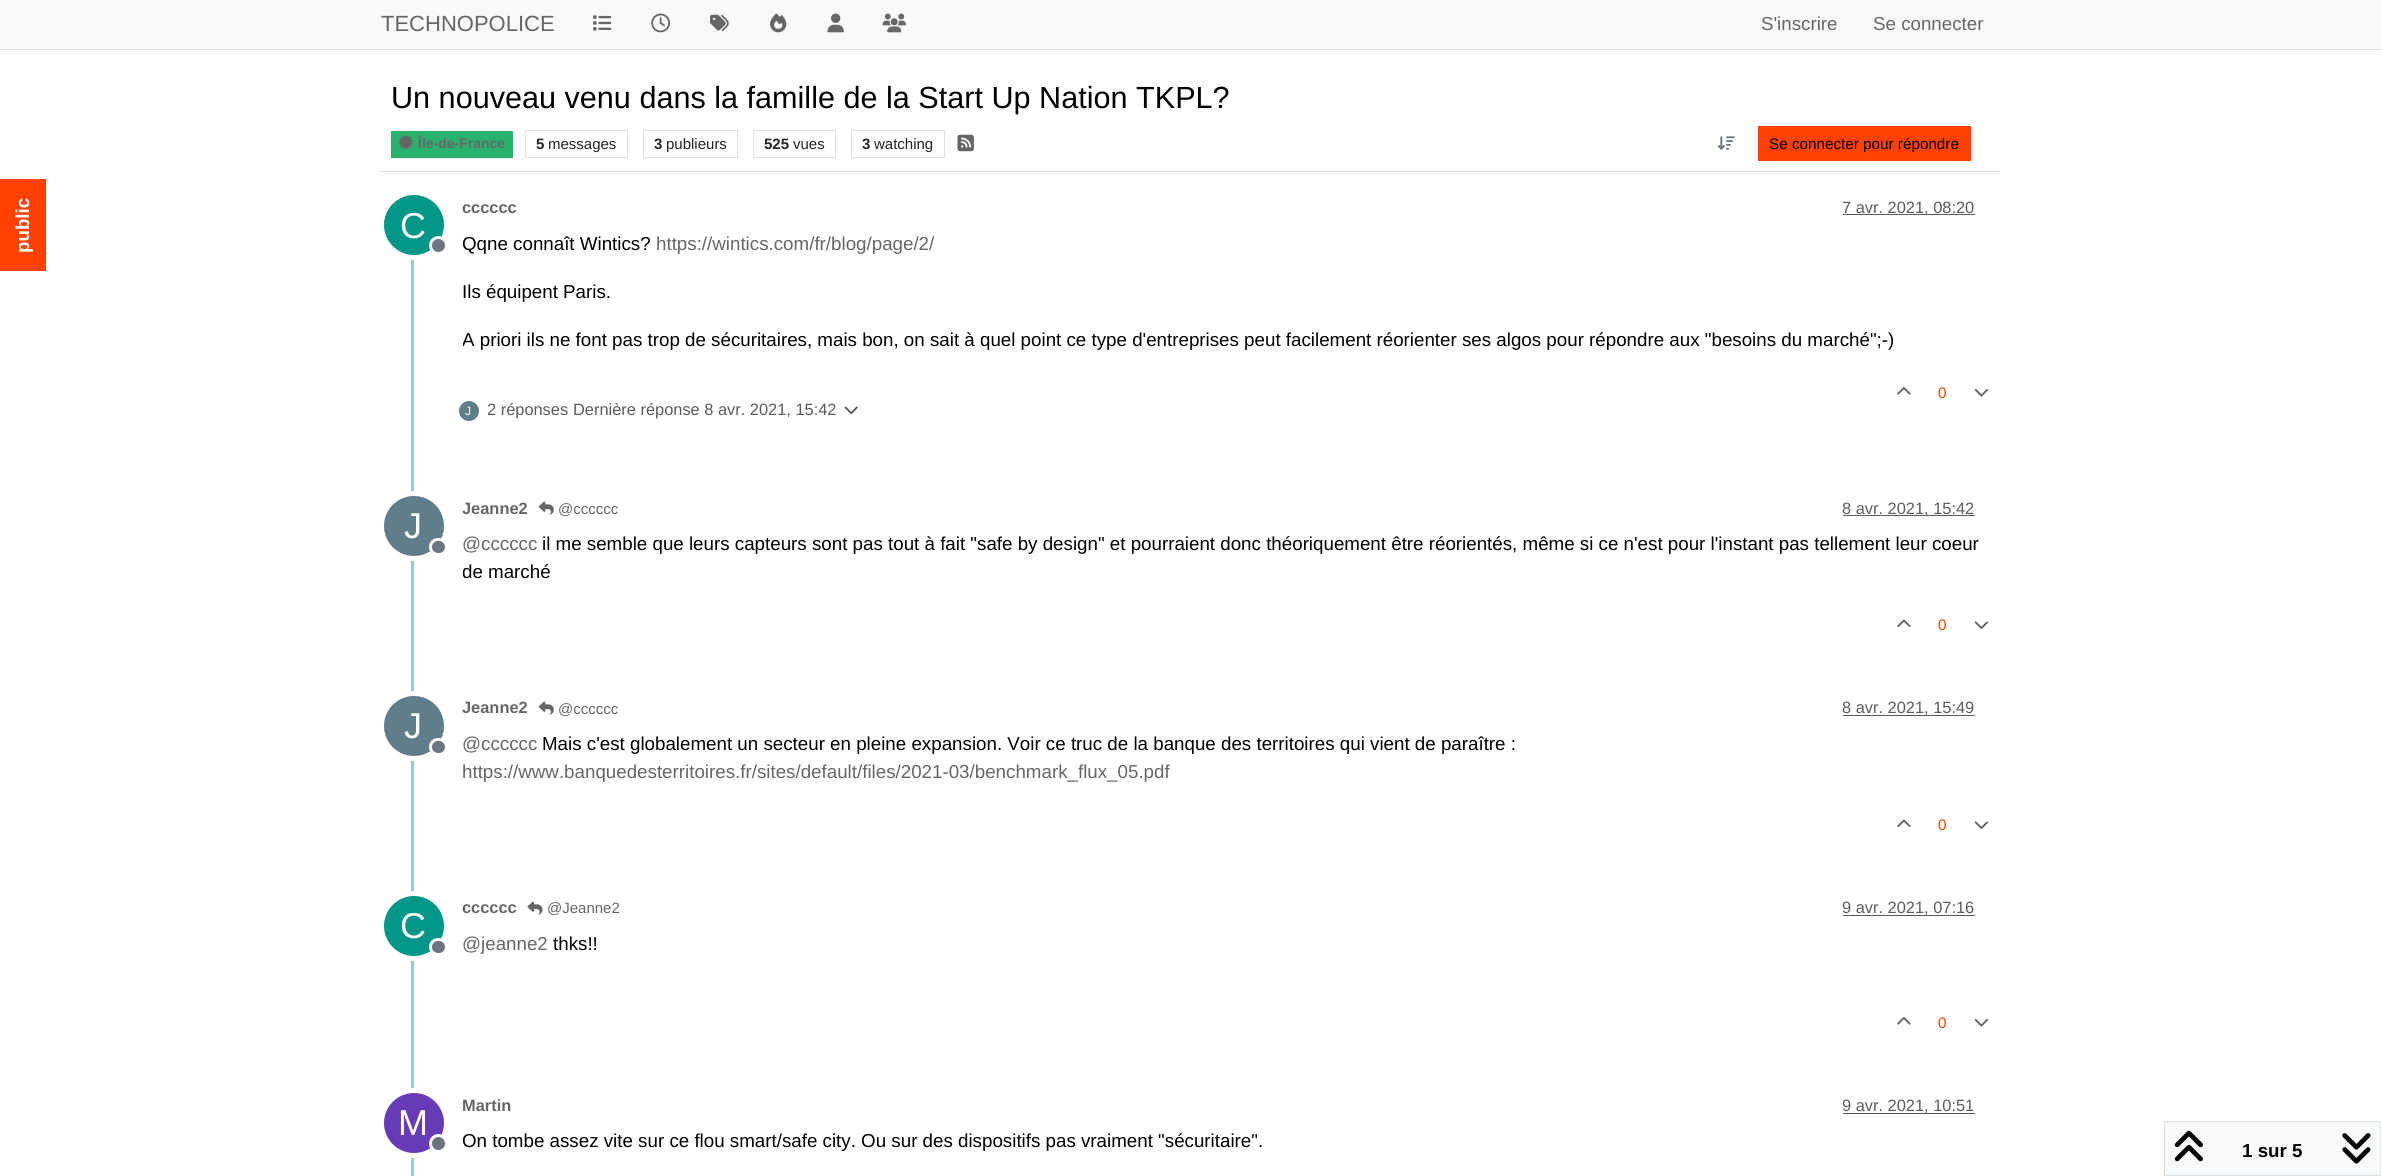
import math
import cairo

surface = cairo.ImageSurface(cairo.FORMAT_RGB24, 2381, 1176)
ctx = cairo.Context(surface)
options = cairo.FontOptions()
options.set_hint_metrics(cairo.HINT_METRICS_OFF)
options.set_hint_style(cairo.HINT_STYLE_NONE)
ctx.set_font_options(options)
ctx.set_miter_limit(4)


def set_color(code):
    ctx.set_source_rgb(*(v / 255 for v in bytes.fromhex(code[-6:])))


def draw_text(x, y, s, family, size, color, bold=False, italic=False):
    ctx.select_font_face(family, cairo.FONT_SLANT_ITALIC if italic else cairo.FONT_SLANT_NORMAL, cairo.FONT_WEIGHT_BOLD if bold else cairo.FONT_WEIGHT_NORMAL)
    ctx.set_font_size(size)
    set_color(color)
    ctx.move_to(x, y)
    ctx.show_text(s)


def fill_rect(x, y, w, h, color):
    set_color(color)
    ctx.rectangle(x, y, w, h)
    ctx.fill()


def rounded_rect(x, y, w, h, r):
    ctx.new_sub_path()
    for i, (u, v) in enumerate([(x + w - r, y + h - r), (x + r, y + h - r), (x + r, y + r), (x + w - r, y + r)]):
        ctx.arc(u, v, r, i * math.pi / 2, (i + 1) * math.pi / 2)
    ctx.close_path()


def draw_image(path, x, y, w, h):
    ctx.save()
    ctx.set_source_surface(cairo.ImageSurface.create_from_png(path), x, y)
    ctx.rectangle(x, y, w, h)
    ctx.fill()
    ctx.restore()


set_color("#ffffff")
ctx.paint()
fill_rect(0, 179, 46, 92, "#ff4200")
ctx.save()
ctx.translate(29, 253)
ctx.rotate(-90 * math.pi / 180)
draw_text(0, 0, "public", "Liberation Sans", 18.75, "#ffffff", bold=True)
ctx.restore()
fill_rect(0, 0, 2381, 49, "#f8f9fa")
fill_rect(0, 49, 2381, 1, "#dee2e6")
draw_text(381, 31, "TECHNOPOLICE", "Liberation Sans", 22, "#666666")
draw_image("assets/img1.png", 593, 15, 19, 16)
draw_image("assets/img2.png", 651, 13, 19, 20)
draw_image("assets/img3.png", 710, 14, 19, 18)
draw_image("assets/img4.png", 770, 13, 17, 20)
draw_image("assets/img5.png", 827, 13, 17, 20)
draw_image("assets/img6.png", 882, 13, 24, 20)
draw_text(1761, 30, "S'inscrire", "Liberation Sans", 18.75, "#666666")
draw_text(1873, 30, "Se connecter", "Liberation Sans", 18.75, "#666666")
fill_rect(381, 171, 1620, 1, "#dee2e6")
draw_text(391, 108, "Un nouveau venu dans la famille de la Start Up Nation TKPL?", "Liberation Sans", 30.6, "#000000")
fill_rect(391, 131, 122, 27, "#29b26e")
draw_image("assets/img7.png", 398, 135, 15, 15)
draw_text(418, 148, "Île-de-France", "Liberation Sans", 14, "#666666", bold=True)
ctx.rectangle(525.5, 130.5, 102, 27)
set_color("#dee2e6")
ctx.set_line_width(1)
ctx.stroke()
draw_text(536, 149, "5", "Liberation Sans", 15, "#212529", bold=True)
draw_text(548, 149, "messages", "Liberation Sans", 15, "#212529")
ctx.rectangle(643.5, 130.5, 94, 27)
set_color("#dee2e6")
ctx.stroke()
draw_text(654, 149, "3", "Liberation Sans", 15, "#212529", bold=True)
draw_text(666, 149, "publieurs", "Liberation Sans", 15, "#212529")
ctx.rectangle(753.5, 130.5, 82, 27)
set_color("#dee2e6")
ctx.stroke()
draw_text(764, 149, "525", "Liberation Sans", 15, "#212529", bold=True)
draw_text(793, 149, "vues", "Liberation Sans", 15, "#212529")
ctx.rectangle(851.5, 130.5, 93, 27)
set_color("#dee2e6")
ctx.stroke()
draw_text(862, 149, "3", "Liberation Sans", 15, "#212529", bold=True)
draw_text(874, 149, "watching", "Liberation Sans", 15, "#212529")
draw_image("assets/img8.png", 957, 134, 17, 18)
draw_image("assets/img9.png", 1717, 136, 18, 14)
fill_rect(1758, 126, 213, 35, "#ff4200")
draw_text(1769, 149, "Se connecter pour répondre", "Liberation Sans", 15.25, "#000000")
fill_rect(411, 193, 3, 983, "#a0c4e4")
draw_text(462, 213, "cccccc", "Liberation Sans", 16.4, "#666666", bold=True)
fill_rect(1843, 214, 132, 1, "#595c5f")
draw_text(1842, 213, "7 avr. 2021, 08:20", "Liberation Sans", 16.4, "#595c5f")
ctx.new_path()
ctx.arc(414, 225, 32.5, 0, 2 * math.pi)
set_color("#ffffff")
ctx.set_line_width(5)
ctx.stroke()
set_color("#009688")
ctx.arc(414, 225, 30, 0, 2 * math.pi)
ctx.fill()
draw_text(400, 238, "C", "Liberation Sans", 36, "#ffffff")
set_color("#6c757d")
ctx.new_path()
ctx.arc(438.5, 245.5, 8, 0, 2 * math.pi)
ctx.fill_preserve()
set_color("#ffffff")
ctx.set_line_width(3)
ctx.stroke()
ctx.save()
ctx.rectangle(463, 230, 1538, 145)
ctx.clip()
draw_text(462, 250, "Qqne connaît Wintics?", "Liberation Sans", 18.75, "#000000")
ctx.restore()
draw_text(656, 250, "https://wintics.com/fr/blog/page/2/", "Liberation Sans", 18.75, "#666666")
draw_text(462, 298, "Ils équipent Paris.", "Liberation Sans", 18.75, "#000000")
ctx.save()
ctx.rectangle(463, 230, 1538, 145)
ctx.clip()
draw_text(462, 346, "A priori ils ne font pas trop de sécuritaires, mais bon, on sait à quel point ce type d'entreprises peut facilement réorienter ses algos pour répondre aux \"besoins du marché\";-)", "Liberation Sans", 18.75, "#000000")
ctx.restore()
draw_image("assets/img10.png", 1897, 387, 14, 8)
draw_text(1938, 398, "0", "Liberation Sans", 15.25, "#ff4200")
draw_image("assets/img11.png", 1974, 388, 15, 9)
set_color("#607d8b")
ctx.arc(469, 411, 10, 0, 2 * math.pi)
ctx.fill()
draw_text(465, 415, "J", "Liberation Sans", 12, "#ffffff")
draw_text(487, 415, "2 réponses", "Liberation Sans", 16.4, "#595c5f")
draw_text(573, 415, "Dernière réponse 8 avr. 2021, 15:42", "Liberation Sans", 16.4, "#595c5f")
draw_image("assets/img12.png", 844, 406, 14, 8)
draw_text(462, 514, "Jeanne2", "Liberation Sans", 16.4, "#666666", bold=True)
draw_image("assets/img13.png", 538, 501, 16, 14)
draw_text(558, 514, "@cccccc", "Liberation Sans", 15, "#666666")
fill_rect(1843, 515, 132, 1, "#595c5f")
draw_text(1842, 514, "8 avr. 2021, 15:42", "Liberation Sans", 16.4, "#595c5f")
ctx.new_path()
ctx.arc(414, 526, 32.5, 0, 2 * math.pi)
set_color("#ffffff")
ctx.set_line_width(5)
ctx.stroke()
set_color("#607d8b")
ctx.arc(414, 526, 30, 0, 2 * math.pi)
ctx.fill()
draw_text(404, 538, "J", "Liberation Sans", 36, "#ffffff")
set_color("#6c757d")
rounded_rect(430.5, 539.5, 16, 15, 7.5)
ctx.fill_preserve()
set_color("#ffffff")
ctx.set_line_width(3)
ctx.stroke()
draw_text(462, 550, "@cccccc", "Liberation Sans", 18.75, "#666666")
draw_text(542, 550, "il me semble que leurs capteurs sont pas tout à fait \"safe by design\" et pourraient donc théoriquement être réorientés, même si ce n'est pour l'instant pas tellement leur coeur", "Liberation Sans", 18.75, "#000000")
ctx.save()
ctx.rectangle(463, 530, 1538, 78)
ctx.clip()
draw_text(462, 578, "de marché", "Liberation Sans", 18.75, "#000000")
ctx.restore()
draw_image("assets/img14.png", 1897, 619, 14, 9)
draw_text(1938, 630, "0", "Liberation Sans", 15.25, "#ff4200")
draw_image("assets/img15.png", 1974, 621, 15, 8)
draw_text(462, 713, "Jeanne2", "Liberation Sans", 16.4, "#666666", bold=True)
draw_image("assets/img13.png", 538, 701, 16, 14)
draw_text(558, 714, "@cccccc", "Liberation Sans", 15, "#666666")
fill_rect(1843, 715, 132, 1, "#595c5f")
draw_text(1842, 713, "8 avr. 2021, 15:49", "Liberation Sans", 16.4, "#595c5f")
ctx.new_path()
ctx.arc(414, 726, 32.5, 0, 2 * math.pi)
set_color("#ffffff")
ctx.set_line_width(5)
ctx.stroke()
set_color("#607d8b")
ctx.arc(414, 726, 30, 0, 2 * math.pi)
ctx.fill()
draw_text(404, 738, "J", "Liberation Sans", 36, "#ffffff")
set_color("#6c757d")
rounded_rect(430.5, 739.5, 16, 15, 7.5)
ctx.fill_preserve()
set_color("#ffffff")
ctx.set_line_width(3)
ctx.stroke()
draw_text(462, 750, "@cccccc", "Liberation Sans", 18.75, "#666666")
draw_text(542, 750, "Mais c'est globalement un secteur en pleine expansion. Voir ce truc de la banque des territoires qui vient de paraître :", "Liberation Sans", 18.75, "#000000")
draw_text(462, 778, "https://www.banquedesterritoires.fr/sites/default/files/2021-03/benchmark_flux_05.pdf", "Liberation Sans", 18.75, "#666666")
draw_image("assets/img14.png", 1897, 819, 14, 9)
draw_text(1938, 830, "0", "Liberation Sans", 15.25, "#ff4200")
draw_image("assets/img15.png", 1974, 821, 15, 8)
draw_text(462, 913, "cccccc", "Liberation Sans", 16.4, "#666666", bold=True)
draw_image("assets/img16.png", 527, 901, 16, 14)
draw_text(547, 913, "@Jeanne2", "Liberation Sans", 15, "#666666")
fill_rect(1843, 915, 132, 1, "#595c5f")
draw_text(1842, 913, "9 avr. 2021, 07:16", "Liberation Sans", 16.4, "#595c5f")
ctx.new_path()
ctx.arc(414, 926, 32.5, 0, 2 * math.pi)
set_color("#ffffff")
ctx.set_line_width(5)
ctx.stroke()
set_color("#009688")
ctx.arc(414, 926, 30, 0, 2 * math.pi)
ctx.fill()
draw_text(400, 938, "C", "Liberation Sans", 36, "#ffffff")
set_color("#6c757d")
rounded_rect(430.5, 939.5, 16, 15, 7.5)
ctx.fill_preserve()
set_color("#ffffff")
ctx.set_line_width(3)
ctx.stroke()
draw_text(462, 950, "@jeanne2", "Liberation Sans", 18.75, "#666666")
draw_text(553, 950, "thks!!", "Liberation Sans", 18.75, "#000000")
draw_image("assets/img10.png", 1897, 1017, 14, 8)
draw_text(1938, 1028, "0", "Liberation Sans", 15.25, "#ff4200")
draw_image("assets/img11.png", 1974, 1018, 15, 9)
draw_text(462, 1111, "Martin", "Liberation Sans", 16.4, "#666666", bold=True)
fill_rect(1843, 1113, 132, 1, "#595c5f")
draw_text(1842, 1111, "9 avr. 2021, 10:51", "Liberation Sans", 16.4, "#595c5f")
ctx.new_path()
ctx.arc(414, 1123, 32.5, 0, 2 * math.pi)
set_color("#ffffff")
ctx.set_line_width(5)
ctx.stroke()
set_color("#673ab7")
ctx.arc(414, 1123, 30, 0, 2 * math.pi)
ctx.fill()
draw_text(398, 1135, "M", "Liberation Sans", 36, "#ffffff")
set_color("#6c757d")
ctx.new_path()
ctx.arc(438.5, 1143.5, 8, 0, 2 * math.pi)
ctx.fill_preserve()
set_color("#ffffff")
ctx.set_line_width(3)
ctx.stroke()
ctx.save()
ctx.rectangle(463, 1128, 1538, 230)
ctx.clip()
draw_text(462, 1147, "On tombe assez vite sur ce flou smart/safe city. Ou sur des dispositifs pas vraiment \"sécuritaire\".", "Liberation Sans", 18.75, "#000000")
ctx.restore()
set_color("#f8f9fa")
ctx.rectangle(2164.5, 1121.5, 216, 54)
ctx.fill_preserve()
set_color("#dee2e6")
ctx.set_line_width(1)
ctx.stroke()
draw_image("assets/img17.png", 2174, 1130, 29, 32)
draw_text(2242, 1157, "1 sur 5", "Liberation Sans", 18.75, "#000000", bold=True)
draw_image("assets/img18.png", 2342, 1133, 29, 31)
surface.write_to_png("output.png")
